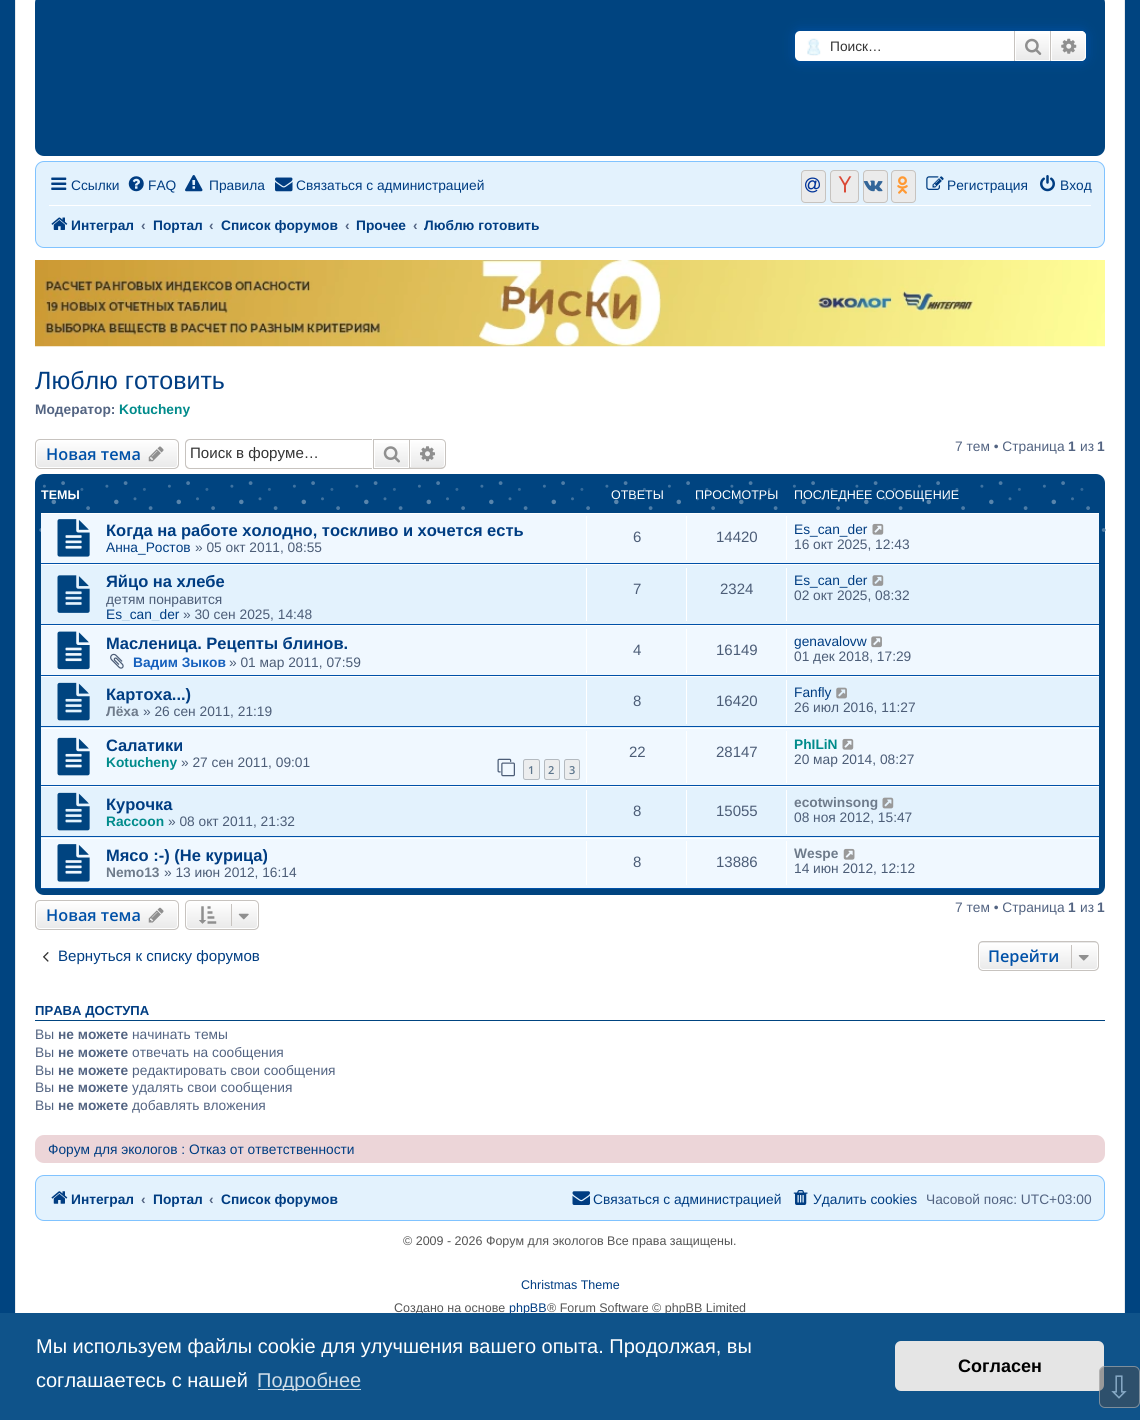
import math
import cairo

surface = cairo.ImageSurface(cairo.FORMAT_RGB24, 1140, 1420)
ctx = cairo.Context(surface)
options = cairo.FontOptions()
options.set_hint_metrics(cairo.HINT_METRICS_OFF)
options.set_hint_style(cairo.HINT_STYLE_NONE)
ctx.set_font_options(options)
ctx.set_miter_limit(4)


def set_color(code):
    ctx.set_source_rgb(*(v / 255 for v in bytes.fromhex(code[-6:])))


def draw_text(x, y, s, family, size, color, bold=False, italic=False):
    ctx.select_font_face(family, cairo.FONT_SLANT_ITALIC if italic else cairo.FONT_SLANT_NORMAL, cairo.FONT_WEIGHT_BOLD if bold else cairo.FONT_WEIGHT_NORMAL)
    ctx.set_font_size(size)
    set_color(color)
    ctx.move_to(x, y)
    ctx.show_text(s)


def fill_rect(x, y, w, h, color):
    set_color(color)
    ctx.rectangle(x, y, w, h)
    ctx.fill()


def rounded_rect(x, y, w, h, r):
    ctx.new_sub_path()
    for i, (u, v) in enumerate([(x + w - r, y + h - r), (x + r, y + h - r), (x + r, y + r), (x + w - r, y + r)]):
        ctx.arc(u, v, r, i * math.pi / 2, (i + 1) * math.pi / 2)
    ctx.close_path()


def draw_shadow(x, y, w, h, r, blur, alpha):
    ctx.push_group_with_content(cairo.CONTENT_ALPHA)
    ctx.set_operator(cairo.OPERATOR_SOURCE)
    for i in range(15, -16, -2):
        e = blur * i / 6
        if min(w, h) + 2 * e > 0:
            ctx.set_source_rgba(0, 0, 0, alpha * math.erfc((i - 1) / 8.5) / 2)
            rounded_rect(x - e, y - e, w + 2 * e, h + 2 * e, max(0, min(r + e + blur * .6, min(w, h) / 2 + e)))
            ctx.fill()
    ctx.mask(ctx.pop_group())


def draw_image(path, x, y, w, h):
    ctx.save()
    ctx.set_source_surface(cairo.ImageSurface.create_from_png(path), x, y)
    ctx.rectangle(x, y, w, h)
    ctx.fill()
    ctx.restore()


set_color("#004480")
ctx.paint()
fill_rect(16, 0, 1108, 1313, "#ffffff")
ctx.rectangle(15.5, -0.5, 1109, 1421)
set_color("#e6e9ed")
ctx.set_line_width(1)
ctx.stroke()
set_color("#004480")
rounded_rect(35, -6, 1070, 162, 9)
ctx.fill()
set_color("#0051a8")
draw_shadow(795, 31, 291, 30, 5, 6, 1)
set_color("#ffffff")
rounded_rect(795, 31, 291, 30, 5)
ctx.fill()
draw_image("assets/img1.png", 807, 38, 14, 18)
draw_text(830, 51, "Поиск…", "Liberation Sans", 13.75, "#333333")
gradient = cairo.LinearGradient(1033, 31, 1033, 61)
gradient.add_color_stop_rgba(0, 1, 1, 1, 1)
gradient.add_color_stop_rgba(1, 0.914, 0.914, 0.914, 1)
ctx.set_source(gradient)
ctx.rectangle(1016, 34, 33, 26)
ctx.fill()
fill_rect(1050, 31, 1, 30, "#c7c3bf")
fill_rect(1014, 31, 1, 30, "#c7c3bf")
draw_image("assets/img2.png", 1025, 38, 17, 17)
gradient = cairo.LinearGradient(1069, 31, 1069, 61)
gradient.add_color_stop_rgba(0, 1, 1, 1, 1)
gradient.add_color_stop_rgba(1, 0.914, 0.914, 0.914, 1)
ctx.set_source(gradient)
ctx.new_path()
ctx.move_to(1051.5, 31.5)
ctx.line_to(1081, 31.5)
ctx.curve_to(1083.5, 31.5, 1085.5, 33.5, 1085.5, 36)
ctx.line_to(1085.5, 56)
ctx.curve_to(1085.5, 58.5, 1083.5, 60.5, 1081, 60.5)
ctx.line_to(1051.5, 60.5)
ctx.close_path()
ctx.fill_preserve()
set_color("#ffffff")
ctx.stroke()
draw_image("assets/img3.png", 1061, 38, 16, 16)
set_color("#e3f2fd")
rounded_rect(35.5, 161.5, 1069, 86, 8.5)
ctx.fill_preserve()
set_color("#80c3ff")
ctx.stroke()
draw_image("assets/img4.png", 51, 177, 16, 13)
draw_text(71, 190, "Ссылки", "Liberation Sans", 13.75, "#003d82")
draw_image("assets/img5.png", 128, 176, 16, 16)
draw_text(148, 190, "FAQ", "Liberation Sans", 13.75, "#003d82")
draw_image("assets/img6.png", 185, 175, 18, 17)
draw_text(209, 190, "Правила", "Liberation Sans", 13.75, "#003d82")
draw_image("assets/img7.png", 275, 177, 18, 15)
draw_text(296, 190, "Связаться с администрацией", "Liberation Sans", 13.75, "#003d82")
set_color("#ebebeb")
rounded_rect(801.5, 170.5, 24, 32, 3.5)
ctx.fill_preserve()
set_color("#c7c3bf")
ctx.stroke()
draw_image("assets/img8.png", 805, 177, 15, 16)
set_color("#ebebeb")
rounded_rect(830.5, 170.5, 28, 32, 3.5)
ctx.fill_preserve()
set_color("#c7c3bf")
ctx.stroke()
draw_image("assets/img9.png", 838, 176, 14, 17)
set_color("#ebebeb")
rounded_rect(863.5, 170.5, 24, 32, 3.5)
ctx.fill_preserve()
set_color("#c7c3bf")
ctx.stroke()
draw_image("assets/img10.png", 863, 180, 20, 12)
set_color("#ebebeb")
rounded_rect(891.5, 170.5, 24, 32, 3.5)
ctx.fill_preserve()
set_color("#c7c3bf")
ctx.stroke()
draw_image("assets/img11.png", 897, 176, 11, 18)
draw_image("assets/img12.png", 926, 176, 18, 14)
draw_text(947, 190, "Регистрация", "Liberation Sans", 13.75, "#003d82")
draw_image("assets/img13.png", 1040, 175, 15, 17)
draw_text(1060, 190, "Вход", "Liberation Sans", 13.75, "#003d82")
fill_rect(49, 205, 1042, 1, "#ffffff")
draw_image("assets/img14.png", 51, 217, 17, 13)
draw_text(71, 230, "Интеграл", "Liberation Sans", 13.75, "#003d82", bold=True)
draw_text(141, 230, "‹", "Liberation Sans", 13.75, "#536482", bold=True)
draw_text(153, 230, "Портал", "Liberation Sans", 13.75, "#003d82", bold=True)
draw_text(209, 230, "‹", "Liberation Sans", 13.75, "#536482", bold=True)
draw_text(221, 230, "Список форумов", "Liberation Sans", 13.75, "#003d82", bold=True)
draw_text(345, 230, "‹", "Liberation Sans", 13.75, "#536482", bold=True)
draw_text(356, 230, "Прочее", "Liberation Sans", 13.75, "#003d82", bold=True)
draw_text(413, 230, "‹", "Liberation Sans", 13.75, "#536482", bold=True)
draw_text(424, 230, "Люблю готовить", "Liberation Sans", 13.75, "#003d82", bold=True)
draw_image("assets/img15.png", 35, 260, 1070, 87)
draw_text(35, 389, "Люблю готовить", "Liberation Sans", 25, "#003d82")
draw_text(35, 414, "Модератор:", "Liberation Sans", 13.75, "#536482", bold=True)
draw_text(119, 414, "Kotucheny", "Liberation Sans", 13.75, "#008b8b", bold=True)
ctx.save()
rounded_rect(35, 439, 144, 30, 5)
ctx.clip()
gradient = cairo.LinearGradient(107, 440, 107, 468)
gradient.add_color_stop_rgba(0, 1, 1, 1, 1)
gradient.add_color_stop_rgba(1, 0.914, 0.914, 0.914, 1)
ctx.set_source(gradient)
ctx.rectangle(35, 440, 144, 28)
ctx.fill()
ctx.restore()
rounded_rect(36.5, 440.5, 141, 27, 3.5)
set_color("#ffffff")
ctx.stroke()
rounded_rect(35.5, 439.5, 143, 29, 4.5)
set_color("#c7c3bf")
ctx.stroke()
draw_text(46, 460, "Новая тема", "Open Sans SemiBold", 16.25, "#0051a8")
draw_image("assets/img16.png", 148, 446, 16, 16)
set_color("#c7c3bf")
ctx.set_fill_rule(cairo.FILL_RULE_EVEN_ODD)
ctx.new_path()
ctx.move_to(190, 439)
ctx.line_to(372, 439)
ctx.line_to(372, 469)
ctx.line_to(190, 469)
ctx.curve_to(187, 469, 185, 467, 185, 464)
ctx.line_to(185, 444)
ctx.curve_to(185, 441, 187, 439, 190, 439)
ctx.close_path()
ctx.move_to(190, 440)
ctx.line_to(372, 440)
ctx.line_to(372, 468)
ctx.line_to(190, 468)
ctx.curve_to(188, 468, 186, 466, 186, 464)
ctx.line_to(186, 444)
ctx.curve_to(186, 442, 188, 440, 190, 440)
ctx.close_path()
ctx.fill()
draw_text(190, 458, "Поиск в форуме…", "Liberation Sans", 15.1, "#333333")
gradient = cairo.LinearGradient(391, 440, 391, 468)
gradient.add_color_stop_rgba(0, 1, 1, 1, 1)
gradient.add_color_stop_rgba(1, 0.914, 0.914, 0.914, 1)
ctx.set_source(gradient)
ctx.rectangle(375, 443, 33, 24)
ctx.fill()
ctx.rectangle(373.5, 439.5, 36, 29)
set_color("#c7c3bf")
ctx.stroke()
draw_image("assets/img17.png", 383, 446, 17, 17)
gradient = cairo.LinearGradient(428, 440, 428, 468)
gradient.add_color_stop_rgba(0, 1, 1, 1, 1)
gradient.add_color_stop_rgba(1, 0.914, 0.914, 0.914, 1)
ctx.set_source(gradient)
ctx.new_path()
ctx.move_to(410.5, 440.5)
ctx.line_to(441, 440.5)
ctx.curve_to(443, 440.5, 444.5, 442, 444.5, 444)
ctx.line_to(444.5, 464)
ctx.curve_to(444.5, 466, 443, 467.5, 441, 467.5)
ctx.line_to(410.5, 467.5)
ctx.close_path()
ctx.fill_preserve()
set_color("#ffffff")
ctx.stroke()
set_color("#c7c3bf")
ctx.new_path()
ctx.move_to(410, 439)
ctx.line_to(441, 439)
ctx.curve_to(444, 439, 446, 441, 446, 444)
ctx.line_to(446, 464)
ctx.curve_to(446, 466.5, 444, 469, 441, 469)
ctx.line_to(410, 469)
ctx.close_path()
ctx.move_to(410, 440)
ctx.line_to(441, 440)
ctx.curve_to(443.5, 440, 445, 441.5, 445, 444)
ctx.line_to(445, 464)
ctx.curve_to(445, 466, 443.5, 467.5, 441, 467.5)
ctx.line_to(410, 467.5)
ctx.close_path()
ctx.fill()
draw_image("assets/img18.png", 420, 446, 15, 16)
draw_text(955, 451, "7 тем • Страница", "Liberation Sans", 13.75, "#536482")
draw_text(1068, 451, "1", "Liberation Sans", 13.75, "#536482", bold=True)
draw_text(1080, 451, "из", "Liberation Sans", 13.75, "#536482")
draw_text(1097, 451, "1", "Liberation Sans", 13.75, "#536482", bold=True)
set_color("#004480")
rounded_rect(35, 474, 1070, 421, 9)
ctx.fill()
ctx.new_path()
ctx.move_to(41.2, 530)
ctx.line_to(1104, 530)
set_color("#4d7ca6")
ctx.set_line_width(3.8)
ctx.set_line_cap(cairo.LINE_CAP_ROUND)
ctx.set_dash([0, 62.5])
ctx.stroke()
ctx.new_path()
ctx.move_to(88.1, 508.1)
ctx.line_to(1088.4, 508.1)
ctx.stroke()
ctx.new_path()
ctx.move_to(72.5, 498.8)
ctx.line_to(1072.8, 498.8)
set_color("#4073a0")
ctx.set_line_width(3)
ctx.stroke()
ctx.new_path()
ctx.move_to(53.8, 501.9)
ctx.line_to(1054, 501.9)
set_color("#5985ac")
ctx.set_line_width(4.5)
ctx.stroke()
ctx.new_path()
ctx.move_to(81.9, 489.4)
ctx.line_to(1082.1, 489.4)
set_color("#336999")
ctx.set_line_width(3)
ctx.stroke()
ctx.new_path()
ctx.move_to(63.1, 483.1)
ctx.line_to(1063.4, 483.1)
set_color("#4d7ca6")
ctx.set_line_width(3.8)
ctx.stroke()
ctx.new_path()
ctx.move_to(44.4, 486.2)
ctx.line_to(1044.6, 486.2)
set_color("#4073a0")
ctx.set_line_width(3)
ctx.stroke()
draw_text(41, 499, "ТЕМЫ", "Liberation Sans", 12.5, "#ffffff", bold=True)
draw_text(611, 499, "ОТВЕТЫ", "Liberation Sans", 12.5, "#ffffff")
draw_text(695, 499, "ПРОСМОТРЫ", "Liberation Sans", 12.5, "#ffffff")
draw_text(794, 499, "ПОСЛЕДНЕЕ СООБЩЕНИЕ", "Liberation Sans", 12.5, "#ffffff")
fill_rect(41, 514, 1058, 49, "#f0f8ff")
fill_rect(41, 513, 1058, 1, "#ffffff")
fill_rect(41, 563, 1058, 1, "#0051a8")
draw_image("assets/img19.png", 57, 519, 33, 38)
draw_text(106, 536, "Когда на работе холодно, тоскливо и хочется есть", "Liberation Sans", 16.5, "#003d82", bold=True)
draw_text(106, 552, "Анна_Ростов", "Liberation Sans", 13.75, "#003d82")
draw_text(195, 552, "» 05 окт 2011, 08:55", "Liberation Sans", 13.75, "#4c5d77")
fill_rect(586, 516, 1, 44, "#ffffff")
draw_text(633, 542, "6", "Liberation Sans", 15, "#4c5d77")
fill_rect(686, 516, 1, 44, "#ffffff")
draw_text(716, 542, "14420", "Liberation Sans", 15, "#4c5d77")
fill_rect(786, 516, 1, 44, "#ffffff")
draw_text(794, 534, "Es_can_der", "Liberation Sans", 13.75, "#003d82")
draw_image("assets/img20.png", 872, 523, 12, 12)
draw_text(794, 549, "16 окт 2025, 12:43", "Liberation Sans", 13.75, "#4c5d77")
fill_rect(41, 565, 1058, 59, "#e3f2fd")
fill_rect(41, 564, 1058, 1, "#ffffff")
fill_rect(41, 624, 1058, 1, "#0051a8")
draw_image("assets/img21.png", 57, 575, 33, 38)
draw_text(106, 587, "Яйцо на хлебе", "Liberation Sans", 16.5, "#003d82", bold=True)
draw_text(106, 604, "детям понравится", "Liberation Sans", 13.75, "#4c5d77")
ctx.save()
ctx.set_fill_rule(cairo.FILL_RULE_WINDING)
ctx.rectangle(41, 568, 1058, 53)
ctx.clip()
draw_text(106, 619, "Es_can_der", "Liberation Sans", 13.75, "#003d82")
ctx.restore()
draw_text(183, 619, "» 30 сен 2025, 14:48", "Liberation Sans", 13.75, "#4c5d77")
fill_rect(586, 568, 1, 53, "#ffffff")
draw_text(633, 594, "7", "Liberation Sans", 15, "#4c5d77")
fill_rect(686, 568, 1, 53, "#ffffff")
draw_text(720, 594, "2324", "Liberation Sans", 15, "#4c5d77")
fill_rect(786, 568, 1, 53, "#ffffff")
draw_text(794, 585, "Es_can_der", "Liberation Sans", 13.75, "#003d82")
draw_image("assets/img22.png", 872, 575, 12, 11)
draw_text(794, 600, "02 окт 2025, 08:32", "Liberation Sans", 13.75, "#4c5d77")
fill_rect(41, 626, 1058, 49, "#f0f8ff")
fill_rect(41, 625, 1058, 1, "#ffffff")
fill_rect(41, 675, 1058, 1, "#0051a8")
draw_image("assets/img23.png", 57, 631, 33, 39)
draw_text(106, 649, "Масленица. Рецепты блинов.", "Liberation Sans", 16.5, "#003d82", bold=True)
draw_image("assets/img24.png", 110, 653, 14, 16)
draw_text(133, 667, "Вадим Зыков", "Liberation Sans", 13.75, "#1560bd", bold=True)
draw_text(229, 667, "» 01 мар 2011, 07:59", "Liberation Sans", 13.75, "#4c5d77")
fill_rect(586, 629, 1, 44, "#ffffff")
draw_text(633, 655, "4", "Liberation Sans", 15, "#4c5d77")
fill_rect(686, 629, 1, 44, "#ffffff")
draw_text(716, 655, "16149", "Liberation Sans", 15, "#4c5d77")
fill_rect(786, 629, 1, 44, "#ffffff")
draw_text(794, 646, "genavalovw", "Liberation Sans", 13.75, "#003d82")
draw_image("assets/img25.png", 871, 636, 11, 12)
draw_text(794, 661, "01 дек 2018, 17:29", "Liberation Sans", 13.75, "#4c5d77")
fill_rect(41, 677, 1058, 51, "#e3f2fd")
fill_rect(41, 676, 1058, 1, "#ffffff")
fill_rect(41, 726, 1058, 1, "#0051a8")
draw_image("assets/img26.png", 57, 682, 33, 39)
draw_text(106, 700, "Картоха...)", "Liberation Sans", 16.5, "#003d82", bold=True)
draw_text(106, 716, "Лёха", "Liberation Sans", 13.75, "#6e7b8b", bold=True)
draw_text(143, 716, "» 26 сен 2011, 21:19", "Liberation Sans", 13.75, "#4c5d77")
fill_rect(586, 680, 1, 44, "#ffffff")
draw_text(633, 706, "8", "Liberation Sans", 15, "#4c5d77")
fill_rect(686, 680, 1, 44, "#ffffff")
draw_text(716, 706, "16420", "Liberation Sans", 15, "#4c5d77")
fill_rect(786, 680, 1, 44, "#ffffff")
draw_text(794, 697, "Fanfly", "Liberation Sans", 13.75, "#003d82")
draw_image("assets/img27.png", 836, 687, 11, 12)
draw_text(794, 712, "26 июл 2016, 11:27", "Liberation Sans", 13.75, "#4c5d77")
fill_rect(41, 729, 1058, 56, "#f0f8ff")
fill_rect(41, 728, 1058, 1, "#ffffff")
fill_rect(41, 785, 1058, 1, "#0051a8")
draw_image("assets/img28.png", 57, 737, 33, 39)
draw_text(106, 751, "Салатики", "Liberation Sans", 16.5, "#003d82", bold=True)
draw_text(106, 767, "Kotucheny", "Liberation Sans", 13.75, "#008b8b", bold=True)
draw_text(181, 767, "» 27 сен 2011, 09:01", "Liberation Sans", 13.75, "#4c5d77")
draw_image("assets/img29.png", 497, 758, 18, 19)
set_color("#ecedee")
rounded_rect(523.5, 759.5, 16, 20, 2)
ctx.fill_preserve()
set_color("#b4bac0")
ctx.set_line_width(1)
ctx.set_line_cap(cairo.LINE_CAP_BUTT)
ctx.set_dash([])
ctx.stroke()
draw_text(528, 774, "1", "Open Sans SemiBold", 11, "#5c758c")
set_color("#ecedee")
rounded_rect(544.5, 759.5, 15, 20, 2)
ctx.fill_preserve()
set_color("#b4bac0")
ctx.stroke()
draw_text(548, 774, "2", "Open Sans SemiBold", 11, "#5c758c")
set_color("#ecedee")
rounded_rect(564.5, 759.5, 15, 20, 2)
ctx.fill_preserve()
set_color("#b4bac0")
ctx.stroke()
draw_text(569, 774, "3", "Open Sans SemiBold", 11, "#5c758c")
fill_rect(586, 731, 1, 52, "#ffffff")
draw_text(629, 757, "22", "Liberation Sans", 15, "#4c5d77")
fill_rect(686, 731, 1, 52, "#ffffff")
draw_text(716, 757, "28147", "Liberation Sans", 15, "#4c5d77")
fill_rect(786, 731, 1, 52, "#ffffff")
draw_text(794, 749, "PhILiN", "Liberation Sans", 13.75, "#008b8b", bold=True)
draw_image("assets/img20.png", 842, 738, 12, 12)
draw_text(794, 764, "20 мар 2014, 08:27", "Liberation Sans", 13.75, "#4c5d77")
fill_rect(41, 787, 1058, 51, "#e3f2fd")
fill_rect(41, 786, 1058, 1, "#ffffff")
fill_rect(41, 836, 1058, 1, "#0051a8")
draw_image("assets/img26.png", 57, 792, 33, 39)
draw_text(106, 810, "Курочка", "Liberation Sans", 16.5, "#003d82", bold=True)
draw_text(106, 826, "Raccoon", "Liberation Sans", 13.75, "#008b8b", bold=True)
draw_text(168, 826, "» 08 окт 2011, 21:32", "Liberation Sans", 13.75, "#4c5d77")
fill_rect(586, 790, 1, 44, "#ffffff")
draw_text(633, 816, "8", "Liberation Sans", 15, "#4c5d77")
fill_rect(686, 790, 1, 44, "#ffffff")
draw_text(716, 816, "15055", "Liberation Sans", 15, "#4c5d77")
fill_rect(786, 790, 1, 44, "#ffffff")
draw_text(794, 807, "ecotwinsong", "Liberation Sans", 13.75, "#6e7b8b", bold=True)
draw_image("assets/img30.png", 882, 797, 12, 12)
draw_text(794, 822, "08 ноя 2012, 15:47", "Liberation Sans", 13.75, "#4c5d77")
fill_rect(41, 839, 1058, 49, "#f0f8ff")
fill_rect(41, 838, 1058, 1, "#ffffff")
fill_rect(41, 888, 1058, 1, "#0051a8")
draw_image("assets/img19.png", 57, 844, 33, 38)
draw_text(106, 861, "Мясо :-) (Не курица)", "Liberation Sans", 16.5, "#003d82", bold=True)
draw_text(106, 877, "Nemo13", "Liberation Sans", 13.75, "#6e7b8b", bold=True)
draw_text(164, 877, "» 13 июн 2012, 16:14", "Liberation Sans", 13.75, "#4c5d77")
fill_rect(586, 841, 1, 44, "#ffffff")
draw_text(633, 867, "8", "Liberation Sans", 15, "#4c5d77")
fill_rect(686, 841, 1, 44, "#ffffff")
draw_text(716, 867, "13886", "Liberation Sans", 15, "#4c5d77")
fill_rect(786, 841, 1, 44, "#ffffff")
draw_text(794, 858, "Wespe", "Liberation Sans", 13.75, "#6e7b8b", bold=True)
draw_image("assets/img31.png", 843, 848, 12, 12)
draw_text(794, 873, "14 июн 2012, 12:12", "Liberation Sans", 13.75, "#4c5d77")
ctx.save()
ctx.set_fill_rule(cairo.FILL_RULE_WINDING)
rounded_rect(35, 900, 144, 30, 5)
ctx.clip()
gradient = cairo.LinearGradient(107, 901, 107, 929)
gradient.add_color_stop_rgba(0, 1, 1, 1, 1)
gradient.add_color_stop_rgba(1, 0.914, 0.914, 0.914, 1)
ctx.set_source(gradient)
ctx.rectangle(35, 901, 144, 28)
ctx.fill()
ctx.restore()
rounded_rect(36.5, 901.5, 141, 27, 3.5)
set_color("#ffffff")
ctx.stroke()
rounded_rect(35.5, 900.5, 143, 29, 4.5)
set_color("#c7c3bf")
ctx.stroke()
draw_text(46, 921, "Новая тема", "Open Sans SemiBold", 16.25, "#0051a8")
draw_image("assets/img32.png", 148, 907, 16, 16)
ctx.save()
ctx.set_fill_rule(cairo.FILL_RULE_WINDING)
rounded_rect(185, 900, 74, 30, 5)
ctx.clip()
gradient = cairo.LinearGradient(222, 901, 222, 929)
gradient.add_color_stop_rgba(0, 1, 1, 1, 1)
gradient.add_color_stop_rgba(1, 0.914, 0.914, 0.914, 1)
ctx.set_source(gradient)
ctx.rectangle(185, 901, 74, 28)
ctx.fill()
ctx.restore()
rounded_rect(186.5, 901.5, 71, 27, 3.5)
set_color("#ffffff")
ctx.stroke()
rounded_rect(185.5, 900.5, 73, 29, 4.5)
set_color("#c7c3bf")
ctx.stroke()
draw_image("assets/img33.png", 199, 906, 18, 18)
fill_rect(231, 904, 1, 22, "#c7c3bf")
draw_image("assets/img34.png", 238, 913, 11, 7)
draw_text(955, 912, "7 тем • Страница", "Liberation Sans", 13.75, "#536482")
draw_text(1068, 912, "1", "Liberation Sans", 13.75, "#536482", bold=True)
draw_text(1080, 912, "из", "Liberation Sans", 13.75, "#536482")
draw_text(1097, 912, "1", "Liberation Sans", 13.75, "#536482", bold=True)
draw_image("assets/img35.png", 43, 952, 6, 10)
draw_text(58, 961, "Вернуться к списку форумов", "Liberation Sans", 15.1, "#003d82")
ctx.save()
ctx.set_fill_rule(cairo.FILL_RULE_WINDING)
rounded_rect(978, 941, 121, 30, 5)
ctx.clip()
gradient = cairo.LinearGradient(1038, 915, 1038, 943)
gradient.add_color_stop_rgba(0, 1, 1, 1, 1)
gradient.add_color_stop_rgba(1, 0.914, 0.914, 0.914, 1)
ctx.set_source(gradient)
ctx.rectangle(978, 941, 121, 2)
ctx.fill()
gradient = cairo.LinearGradient(1038, 943, 1038, 970)
gradient.add_color_stop_rgba(0, 1, 1, 1, 1)
gradient.add_color_stop_rgba(1, 0.914, 0.914, 0.914, 1)
ctx.set_source(gradient)
ctx.rectangle(978, 943, 121, 27)
ctx.fill()
ctx.restore()
rounded_rect(979.5, 943.5, 118, 26, 3.5)
set_color("#ffffff")
ctx.stroke()
rounded_rect(978.5, 941.5, 120, 29, 4.5)
set_color("#c7c3bf")
ctx.stroke()
draw_text(988, 962, "Перейти", "Open Sans SemiBold", 16.25, "#0051a8")
fill_rect(1071, 945, 1, 23, "#c7c3bf")
draw_image("assets/img36.png", 1078, 955, 11, 6)
fill_rect(35, 1020, 1070, 1, "#004480")
draw_text(35, 1015, "ПРАВА ДОСТУПА", "Liberation Sans", 13.1, "#003d82", bold=True)
draw_text(35, 1039, "Вы", "Liberation Sans", 13.75, "#536482")
draw_text(58, 1039, "не можете", "Liberation Sans", 13.75, "#536482", bold=True)
draw_text(132, 1039, "начинать темы", "Liberation Sans", 13.75, "#536482")
draw_text(35, 1057, "Вы", "Liberation Sans", 13.75, "#536482")
draw_text(58, 1057, "не можете", "Liberation Sans", 13.75, "#536482", bold=True)
draw_text(132, 1057, "отвечать на сообщения", "Liberation Sans", 13.75, "#536482")
draw_text(35, 1075, "Вы", "Liberation Sans", 13.75, "#536482")
draw_text(58, 1075, "не можете", "Liberation Sans", 13.75, "#536482", bold=True)
draw_text(132, 1075, "редактировать свои сообщения", "Liberation Sans", 13.75, "#536482")
draw_text(35, 1092, "Вы", "Liberation Sans", 13.75, "#536482")
draw_text(58, 1092, "не можете", "Liberation Sans", 13.75, "#536482", bold=True)
draw_text(132, 1092, "удалять свои сообщения", "Liberation Sans", 13.75, "#536482")
draw_text(35, 1110, "Вы", "Liberation Sans", 13.75, "#536482")
draw_text(58, 1110, "не можете", "Liberation Sans", 13.75, "#536482", bold=True)
draw_text(132, 1110, "добавлять вложения", "Liberation Sans", 13.75, "#536482")
set_color("#ecd5d8")
rounded_rect(35, 1135, 1070, 28, 9)
ctx.fill()
draw_text(48, 1154, "Форум для экологов : Отказ от ответственности", "Liberation Sans", 13.75, "#003d82")
set_color("#e3f2fd")
rounded_rect(35.5, 1175.5, 1069, 45, 8.5)
ctx.fill_preserve()
set_color("#80c3ff")
ctx.stroke()
draw_image("assets/img37.png", 51, 1191, 17, 13)
draw_text(71, 1204, "Интеграл", "Liberation Sans", 13.75, "#003d82", bold=True)
draw_text(141, 1204, "‹", "Liberation Sans", 13.75, "#536482", bold=True)
draw_text(153, 1204, "Портал", "Liberation Sans", 13.75, "#003d82", bold=True)
draw_text(209, 1204, "‹", "Liberation Sans", 13.75, "#536482", bold=True)
draw_text(221, 1204, "Список форумов", "Liberation Sans", 13.75, "#003d82", bold=True)
draw_image("assets/img38.png", 572, 1191, 18, 14)
draw_text(593, 1204, "Связаться с администрацией", "Liberation Sans", 13.75, "#003d82")
draw_image("assets/img39.png", 793, 1190, 15, 15)
draw_text(813, 1204, "Удалить cookies", "Liberation Sans", 13.75, "#003d82")
draw_text(926, 1204, "Часовой пояс: UTC+03:00", "Liberation Sans", 13.75, "#536482")
draw_text(403, 1245, "© 2009 - 2026 Форум для экологов Все права защищены.", "Liberation Sans", 12.5, "#555555")
draw_text(521, 1289, "Christmas Theme", "Liberation Sans", 12.5, "#003d82")
draw_text(394, 1312, "Создано на основе", "Liberation Sans", 12.5, "#555555")
draw_text(509, 1312, "phpBB", "Liberation Sans", 12.5, "#003d82")
draw_text(547, 1312, "® Forum Software © phpBB Limited", "Liberation Sans", 12.5, "#555555")
fill_rect(0, 1313, 1140, 107, "#0f538a")
draw_text(36, 1353, "Мы используем файлы cookie для улучшения вашего опыта. Продолжая, вы", "Liberation Sans", 20, "#ffffff")
draw_text(36, 1387, "соглашаетесь с нашей", "Liberation Sans", 20, "#ffffff")
fill_rect(258, 1389, 103, 1, "#cfdde8")
draw_text(257, 1387, "Подробнее", "Liberation Sans", 20, "#cfdde8")
set_color("#e5e5e5")
rounded_rect(895, 1341, 209, 50, 6)
ctx.fill()
draw_text(958, 1372, "Согласен", "Liberation Sans", 18, "#000000", bold=True)
ctx.set_source_rgba(0.31, 0.31, 0.31, 0.5)
rounded_rect(1099, 1366, 41, 42, 6)
ctx.fill()
rounded_rect(1099.5, 1366.5, 40, 41, 5.5)
ctx.set_source_rgba(0.8, 0.8, 0.8, 0.5)
ctx.stroke()
draw_text(1106, 1398, "⇩", "DejaVu Sans", 31, "#87a9c5")
surface.write_to_png("output.png")
